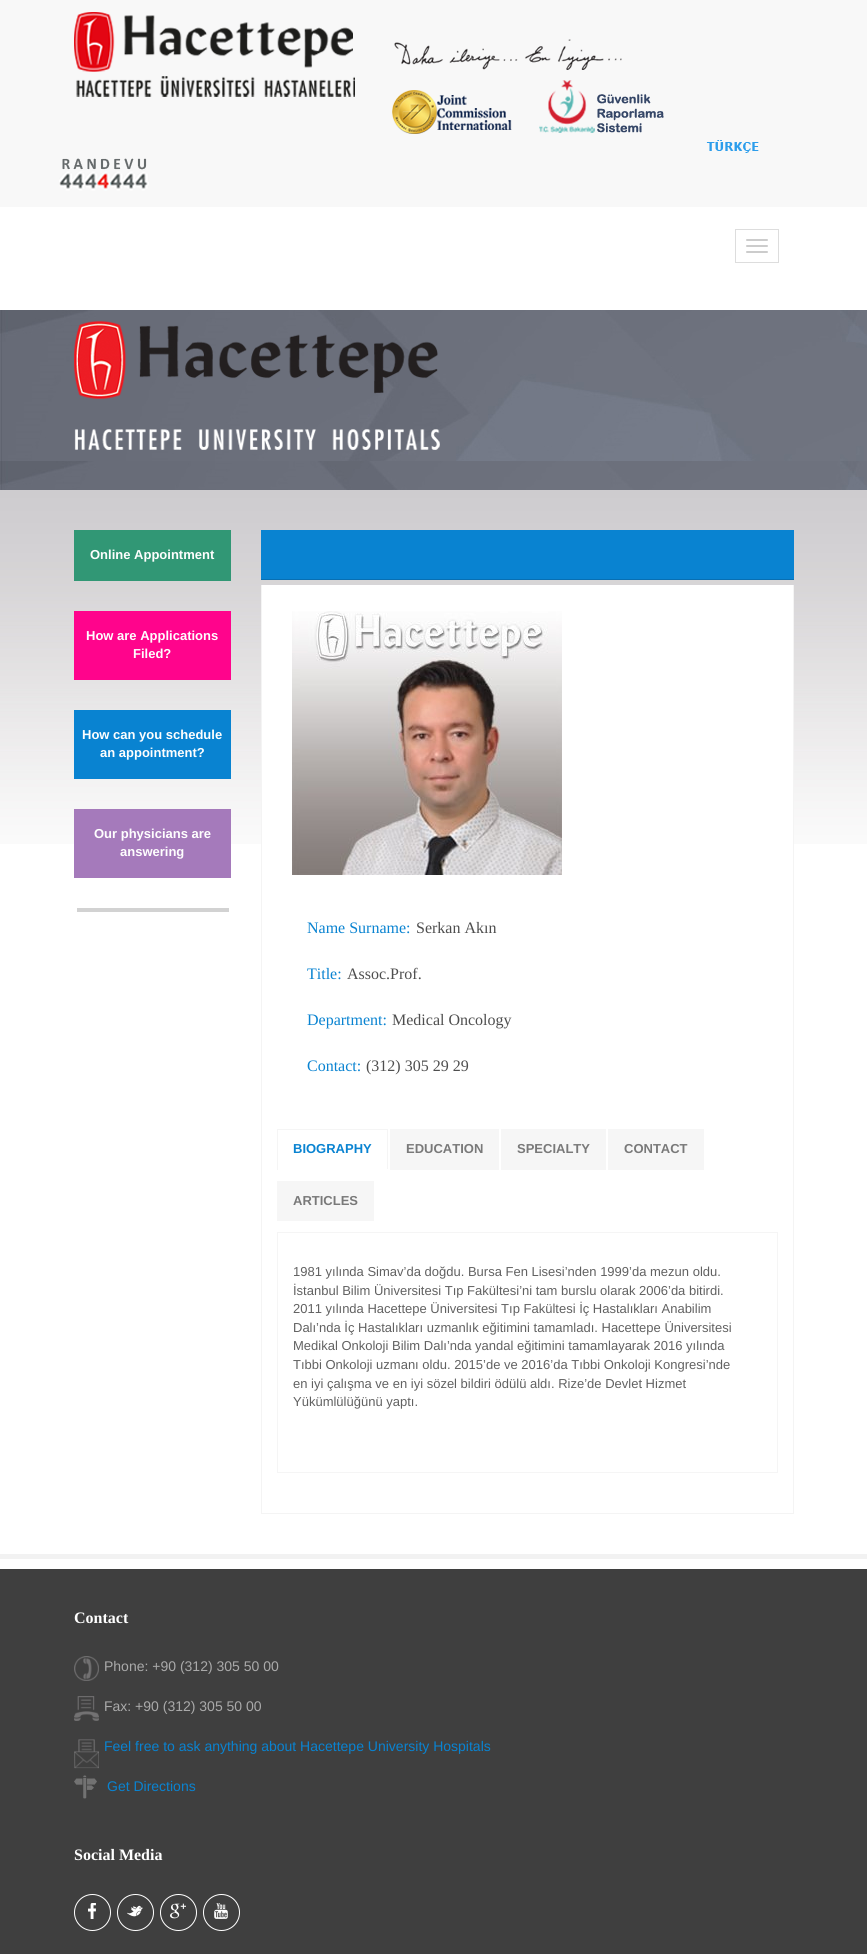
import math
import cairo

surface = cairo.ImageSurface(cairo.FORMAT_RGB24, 867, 1954)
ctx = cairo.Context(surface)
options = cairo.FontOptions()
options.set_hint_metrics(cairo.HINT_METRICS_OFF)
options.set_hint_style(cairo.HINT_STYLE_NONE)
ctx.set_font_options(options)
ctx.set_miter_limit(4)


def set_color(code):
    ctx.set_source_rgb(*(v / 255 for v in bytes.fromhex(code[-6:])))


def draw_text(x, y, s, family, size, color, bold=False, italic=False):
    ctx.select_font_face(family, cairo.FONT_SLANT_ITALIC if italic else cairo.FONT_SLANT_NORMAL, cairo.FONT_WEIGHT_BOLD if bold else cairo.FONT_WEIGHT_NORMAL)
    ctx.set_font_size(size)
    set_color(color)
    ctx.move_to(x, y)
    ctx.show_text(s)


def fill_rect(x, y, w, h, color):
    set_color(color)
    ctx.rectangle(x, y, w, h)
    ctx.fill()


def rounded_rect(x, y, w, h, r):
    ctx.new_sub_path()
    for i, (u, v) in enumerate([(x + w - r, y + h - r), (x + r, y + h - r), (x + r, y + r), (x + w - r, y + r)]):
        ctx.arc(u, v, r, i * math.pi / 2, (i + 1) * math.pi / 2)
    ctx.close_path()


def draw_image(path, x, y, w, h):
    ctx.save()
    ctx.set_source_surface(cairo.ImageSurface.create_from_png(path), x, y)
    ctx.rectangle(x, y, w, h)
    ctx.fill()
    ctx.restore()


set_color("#ffffff")
ctx.paint()
fill_rect(0, 0, 867, 207, "#f8f8f8")
draw_image("assets/img1.png", 74, 12, 281, 85)
draw_image("assets/img2.png", 394, 39, 228, 31)
draw_image("assets/img3.png", 392, 90, 120, 44)
draw_image("assets/img4.png", 539, 80, 125, 53)
draw_image("assets/img5.png", 706, 140, 53, 13)
draw_image("assets/img6.png", 59, 158, 90, 33)
ctx.rectangle(735.5, 229.5, 43, 33)
set_color("#dddddd")
ctx.set_line_width(1)
ctx.stroke()
set_color("#cccccc")
rounded_rect(746, 239, 22, 2, 1)
ctx.fill()
rounded_rect(746, 245, 22, 2, 1)
ctx.fill()
rounded_rect(746, 251, 22, 2, 1)
ctx.fill()
draw_image("assets/img7.png", 0, 310, 867, 180)
draw_image("assets/img8.png", 74, 321, 366, 129)
draw_image("assets/img9.png", 0, 490, 867, 354)
fill_rect(0, 1554, 867, 5, "#f2f2f2")
fill_rect(77, 908, 152, 4, "#d2d2d2")
fill_rect(74, 530, 157, 51, "#319775")
draw_text(90, 559, "Online Appointment", "Liberation Sans", 13, "#fefefe", bold=True)
fill_rect(74, 611, 157, 69, "#ff048c")
draw_text(86, 640, "How are Applications", "Liberation Sans", 13, "#fefefe", bold=True)
draw_text(133, 658, "Filed?", "Liberation Sans", 13, "#fefefe", bold=True)
fill_rect(74, 710, 157, 69, "#0983d1")
draw_text(82, 739, "How can you schedule", "Liberation Sans", 13, "#fefefe", bold=True)
draw_text(100, 757, "an appointment?", "Liberation Sans", 13, "#fefefe", bold=True)
fill_rect(74, 809, 157, 69, "#a57abb")
draw_text(94, 838, "Our physicians are", "Liberation Sans", 13, "#fefefe", bold=True)
draw_text(120, 856, "answering", "Liberation Sans", 13, "#fefefe", bold=True)
fill_rect(261, 530, 533, 49, "#0983d1")
fill_rect(261, 579, 533, 1, "#086fb2")
fill_rect(262, 585, 531, 259, "#ffffff")
fill_rect(793, 585, 1, 929, "#f4f4f4")
fill_rect(261, 1513, 533, 1, "#f4f4f4")
fill_rect(261, 585, 1, 929, "#f4f4f4")
draw_image("assets/img10.png", 292, 611, 270, 264)
draw_text(307, 933, "Name Surname:", "Liberation Serif", 16, "#0983d1")
draw_text(416, 933, "Serkan Akın", "Liberation Serif", 16, "#4e4e4e")
draw_text(307, 979, "Title:", "Liberation Serif", 16, "#0983d1")
draw_text(347, 979, "Assoc.Prof.", "Liberation Serif", 16, "#4e4e4e")
draw_text(307, 1025, "Department:", "Liberation Serif", 16, "#0983d1")
draw_text(392, 1025, "Medical Oncology", "Liberation Serif", 16, "#4e4e4e")
draw_text(307, 1071, "Contact:", "Liberation Serif", 16, "#0983d1")
draw_text(366, 1071, "(312) 305 29 29", "Liberation Serif", 16, "#4e4e4e")
fill_rect(277, 1129, 111, 1, "#f5f5f5")
fill_rect(387, 1129, 1, 41, "#f5f5f5")
fill_rect(387, 1169, 1, 1, "#ffffff")
fill_rect(277, 1129, 1, 41, "#f5f5f5")
draw_text(293, 1153, "BIOGRAPHY", "Liberation Sans", 13, "#0983d1", bold=True)
fill_rect(390, 1129, 109, 41, "#f6f6f6")
draw_text(406, 1153, "EDUCATION", "Liberation Sans", 13, "#797979", bold=True)
fill_rect(501, 1129, 105, 41, "#f6f6f6")
draw_text(517, 1153, "SPECIALTY", "Liberation Sans", 13, "#797979", bold=True)
fill_rect(608, 1129, 96, 41, "#f6f6f6")
draw_text(624, 1153, "CONTACT", "Liberation Sans", 13, "#797979", bold=True)
fill_rect(277, 1181, 97, 40, "#f6f6f6")
draw_text(293, 1205, "ARTICLES", "Liberation Sans", 13, "#797979", bold=True)
ctx.rectangle(277.5, 1232.5, 500, 240)
set_color("#f5f5f5")
ctx.stroke()
draw_text(293, 1276, "1981 yılında Simav’da doğdu. Bursa Fen Lisesi’nden 1999’da mezun oldu.", "Liberation Sans", 13, "#616161")
draw_text(293, 1295, "İstanbul Bilim Üniversitesi Tıp Fakültesi’ni tam burslu olarak 2006’da bitirdi.", "Liberation Sans", 13, "#616161")
draw_text(293, 1313, "2011 yılında Hacettepe Üniversitesi Tıp Fakültesi İç Hastalıkları Anabilim", "Liberation Sans", 13, "#616161")
draw_text(293, 1332, "Dalı’nda İç Hastalıkları uzmanlık eğitimini tamamladı. Hacettepe Üniversitesi", "Liberation Sans", 13, "#616161")
draw_text(293, 1350, "Medikal Onkoloji Bilim Dalı’nda yandal eğitimini tamamlayarak 2016 yılında", "Liberation Sans", 13, "#616161")
draw_text(293, 1369, "Tıbbi Onkoloji uzmanı oldu. 2015’de ve 2016’da Tıbbi Onkoloji Kongresi’nde", "Liberation Sans", 13, "#616161")
draw_text(293, 1388, "en iyi çalışma ve en iyi sözel bildiri ödülü aldı. Rize’de Devlet Hizmet", "Liberation Sans", 13, "#616161")
draw_text(293, 1406, "Yükümlülüğünü yaptı.", "Liberation Sans", 13, "#616161")
fill_rect(0, 1569, 867, 385, "#3f3f3f")
draw_text(74, 1623, "Contact", "Liberation Serif", 16, "#fefefe", bold=True)
draw_image("assets/img11.png", 74, 1656, 25, 25)
draw_text(104, 1671, "Phone: +90 (312) 305 50 00", "Liberation Sans", 14, "#aaaaaa")
draw_image("assets/img12.png", 74, 1696, 25, 25)
draw_text(104, 1711, "Fax: +90 (312) 305 50 00", "Liberation Sans", 14, "#aaaaaa")
draw_image("assets/img13.png", 74, 1739, 25, 30)
draw_text(104, 1751, "Feel free to ask anything about Hacettepe University Hospitals", "Liberation Sans", 14, "#0983d1")
draw_image("assets/img14.png", 74, 1775, 23, 24)
draw_text(107, 1791, "Get Directions", "Liberation Sans", 14, "#0983d1")
draw_text(74, 1860, "Social Media", "Liberation Serif", 16, "#fefefe", bold=True)
ctx.new_path()
ctx.arc(92.5, 1912.5, 18, 0, 2 * math.pi)
set_color("#ffffff")
ctx.stroke()
draw_image("assets/img15.png", 88, 1903, 8, 16)
ctx.arc(135.5, 1912.5, 18, 0, 2 * math.pi)
ctx.stroke()
draw_image("assets/img16.png", 127, 1905, 16, 12)
ctx.arc(178.5, 1912.5, 18, 0, 2 * math.pi)
ctx.stroke()
draw_image("assets/img17.png", 170, 1903, 16, 16)
ctx.arc(221.5, 1912.5, 18, 0, 2 * math.pi)
ctx.stroke()
draw_image("assets/img18.png", 214, 1903, 14, 16)
surface.write_to_png("output.png")
